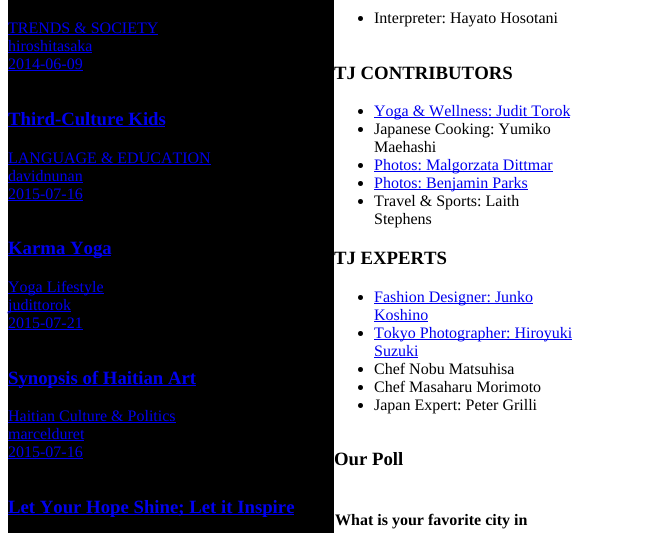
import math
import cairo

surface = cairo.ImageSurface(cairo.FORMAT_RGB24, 664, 533)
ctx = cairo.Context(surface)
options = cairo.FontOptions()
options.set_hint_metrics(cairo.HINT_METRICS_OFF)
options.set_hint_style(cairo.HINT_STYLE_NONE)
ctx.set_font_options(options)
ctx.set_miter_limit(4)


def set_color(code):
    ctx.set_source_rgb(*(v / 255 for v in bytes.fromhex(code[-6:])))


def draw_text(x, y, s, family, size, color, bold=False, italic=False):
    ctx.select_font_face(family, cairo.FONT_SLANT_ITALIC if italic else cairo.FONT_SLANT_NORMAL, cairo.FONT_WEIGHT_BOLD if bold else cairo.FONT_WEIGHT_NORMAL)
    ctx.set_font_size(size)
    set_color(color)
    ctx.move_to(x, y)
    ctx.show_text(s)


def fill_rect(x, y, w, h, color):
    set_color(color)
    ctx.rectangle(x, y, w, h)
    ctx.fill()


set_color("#ffffff")
ctx.paint()
fill_rect(8, 0, 326, 533, "#000000")
draw_text(8, 33, "TRENDS & SOCIETY", "Liberation Serif", 16, "#0000ee")
fill_rect(8, 34, 150, 1, "#0000ee")
draw_text(8, 51, "hiroshitasaka", "Liberation Serif", 16, "#0000ee")
fill_rect(8, 52, 84, 1, "#0000ee")
draw_text(8, 69, "2014-06-09", "Liberation Serif", 16, "#0000ee")
fill_rect(8, 70, 75, 1, "#0000ee")
draw_text(8, 125, "Third-Culture Kids", "Liberation Serif", 18.75, "#0000ee", bold=True)
fill_rect(8, 126, 157, 1, "#0000ee")
draw_text(8, 163, "LANGUAGE & EDUCATION", "Liberation Serif", 16, "#0000ee")
fill_rect(8, 164, 203, 1, "#0000ee")
draw_text(8, 181, "davidnunan", "Liberation Serif", 16, "#0000ee")
fill_rect(8, 182, 75, 1, "#0000ee")
draw_text(8, 199, "2015-07-16", "Liberation Serif", 16, "#0000ee")
fill_rect(8, 200, 75, 1, "#0000ee")
fill_rect(8, 255, 103, 1, "#0000ee")
draw_text(8, 254, "Karma Yoga", "Liberation Serif", 18.75, "#0000ee", bold=True)
fill_rect(8, 293, 96, 1, "#0000ee")
draw_text(8, 292, "Yoga Lifestyle", "Liberation Serif", 16, "#0000ee")
fill_rect(8, 311, 63, 1, "#0000ee")
draw_text(8, 310, "judittorok", "Liberation Serif", 16, "#0000ee")
draw_text(8, 328, "2015-07-21", "Liberation Serif", 16, "#0000ee")
fill_rect(8, 329, 75, 1, "#0000ee")
fill_rect(8, 385, 188, 1, "#0000ee")
draw_text(8, 384, "Synopsis of Haitian Art", "Liberation Serif", 18.75, "#0000ee", bold=True)
draw_text(8, 421, "Haitian Culture & Politics", "Liberation Serif", 16, "#0000ee")
fill_rect(8, 422, 168, 1, "#0000ee")
draw_text(8, 439, "marcelduret", "Liberation Serif", 16, "#0000ee")
fill_rect(8, 440, 76, 1, "#0000ee")
draw_text(8, 457, "2015-07-16", "Liberation Serif", 16, "#0000ee")
fill_rect(8, 458, 75, 1, "#0000ee")
fill_rect(8, 514, 286, 1, "#0000ee")
draw_text(8, 513, "Let Your Hope Shine; Let it Inspire", "Liberation Serif", 18.75, "#0000ee", bold=True)
set_color("#000000")
ctx.new_path()
ctx.arc(360.5, 18.5, 2.5, 0, 2 * math.pi)
ctx.fill()
draw_text(374, 23, "Interpreter: Hayato Hosotani", "Liberation Serif", 16, "#000000")
draw_text(334, 79, "TJ CONTRIBUTORS", "Liberation Serif", 18.75, "#000000", bold=True)
ctx.new_path()
ctx.arc(360.5, 111.5, 2.5, 0, 2 * math.pi)
ctx.fill()
fill_rect(374, 117, 196, 1, "#0000ee")
draw_text(374, 116, "Yoga & Wellness: Judit Torok", "Liberation Serif", 16, "#0000ee")
set_color("#000000")
ctx.new_path()
ctx.arc(360.5, 129.5, 2.5, 0, 2 * math.pi)
ctx.fill()
draw_text(374, 134, "Japanese Cooking: Yumiko", "Liberation Serif", 16, "#000000")
draw_text(374, 152, "Maehashi", "Liberation Serif", 16, "#000000")
ctx.new_path()
ctx.arc(360.5, 165.5, 2.5, 0, 2 * math.pi)
ctx.fill()
fill_rect(374, 171, 179, 1, "#0000ee")
draw_text(374, 170, "Photos: Malgorzata Dittmar", "Liberation Serif", 16, "#0000ee")
set_color("#000000")
ctx.new_path()
ctx.arc(360.5, 183.5, 2.5, 0, 2 * math.pi)
ctx.fill()
fill_rect(374, 189, 154, 1, "#0000ee")
draw_text(374, 188, "Photos: Benjamin Parks", "Liberation Serif", 16, "#0000ee")
set_color("#000000")
ctx.new_path()
ctx.arc(360.5, 201.5, 2.5, 0, 2 * math.pi)
ctx.fill()
draw_text(374, 206, "Travel & Sports: Laith", "Liberation Serif", 16, "#000000")
draw_text(374, 224, "Stephens", "Liberation Serif", 16, "#000000")
draw_text(334, 264, "TJ EXPERTS", "Liberation Serif", 18.75, "#000000", bold=True)
ctx.new_path()
ctx.arc(360.5, 297.5, 2.5, 0, 2 * math.pi)
ctx.fill()
fill_rect(374, 303, 159, 1, "#0000ee")
draw_text(374, 302, "Fashion Designer: Junko", "Liberation Serif", 16, "#0000ee")
draw_text(374, 320, "Koshino", "Liberation Serif", 16, "#0000ee")
fill_rect(374, 321, 54, 1, "#0000ee")
set_color("#000000")
ctx.new_path()
ctx.arc(360.5, 333.5, 2.5, 0, 2 * math.pi)
ctx.fill()
fill_rect(374, 339, 198, 1, "#0000ee")
draw_text(374, 338, "Tokyo Photographer: Hiroyuki", "Liberation Serif", 16, "#0000ee")
draw_text(374, 356, "Suzuki", "Liberation Serif", 16, "#0000ee")
fill_rect(374, 357, 44, 1, "#0000ee")
set_color("#000000")
ctx.new_path()
ctx.arc(360.5, 369.5, 2.5, 0, 2 * math.pi)
ctx.fill()
draw_text(374, 374, "Chef Nobu Matsuhisa", "Liberation Serif", 16, "#000000")
ctx.new_path()
ctx.arc(360.5, 387.5, 2.5, 0, 2 * math.pi)
ctx.fill()
draw_text(374, 392, "Chef Masaharu Morimoto", "Liberation Serif", 16, "#000000")
ctx.new_path()
ctx.arc(360.5, 405.5, 2.5, 0, 2 * math.pi)
ctx.fill()
draw_text(374, 410, "Japan Expert: Peter Grilli", "Liberation Serif", 16, "#000000")
draw_text(334, 465, "Our Poll", "Liberation Serif", 18.75, "#000000", bold=True)
draw_text(335, 525, "What is your favorite city in", "Liberation Serif", 16, "#000000", bold=True)
surface.write_to_png("output.png")
